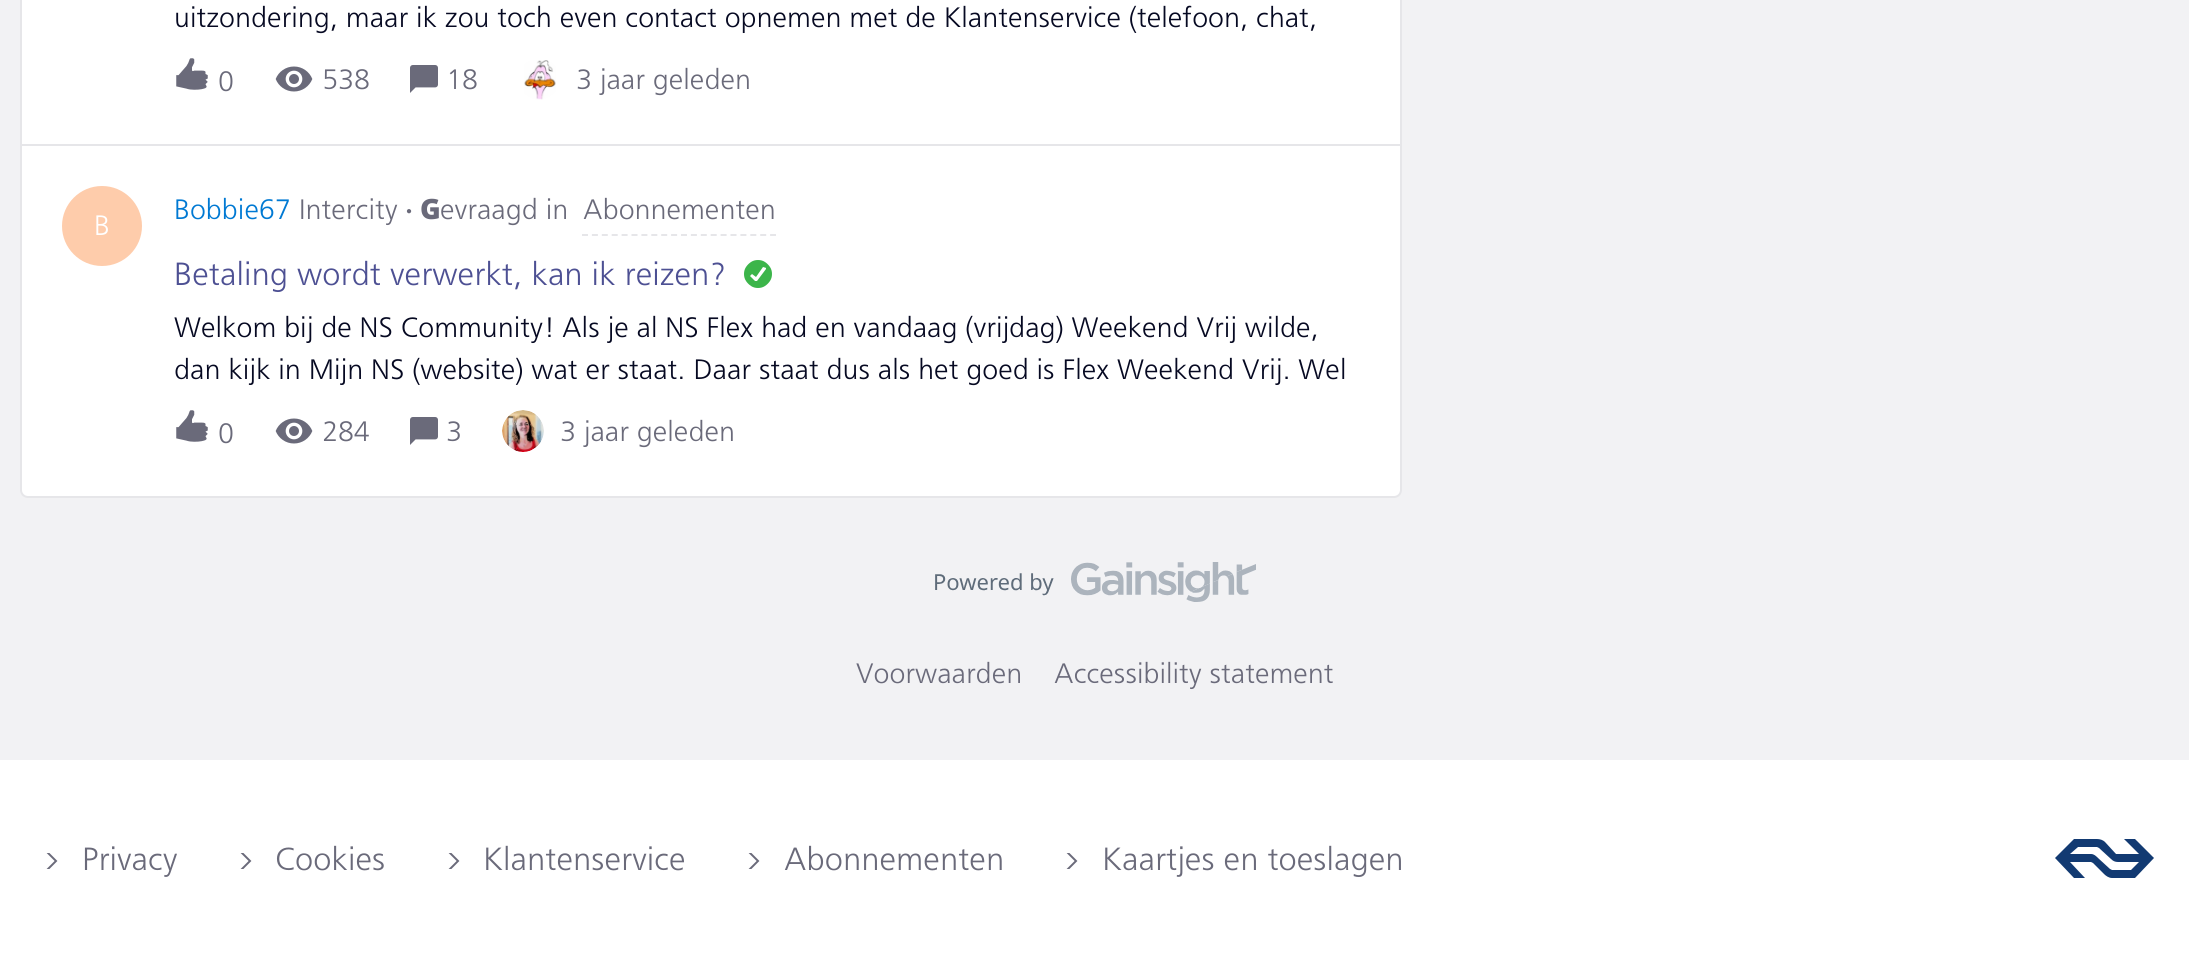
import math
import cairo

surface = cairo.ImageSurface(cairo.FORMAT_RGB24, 2189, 969)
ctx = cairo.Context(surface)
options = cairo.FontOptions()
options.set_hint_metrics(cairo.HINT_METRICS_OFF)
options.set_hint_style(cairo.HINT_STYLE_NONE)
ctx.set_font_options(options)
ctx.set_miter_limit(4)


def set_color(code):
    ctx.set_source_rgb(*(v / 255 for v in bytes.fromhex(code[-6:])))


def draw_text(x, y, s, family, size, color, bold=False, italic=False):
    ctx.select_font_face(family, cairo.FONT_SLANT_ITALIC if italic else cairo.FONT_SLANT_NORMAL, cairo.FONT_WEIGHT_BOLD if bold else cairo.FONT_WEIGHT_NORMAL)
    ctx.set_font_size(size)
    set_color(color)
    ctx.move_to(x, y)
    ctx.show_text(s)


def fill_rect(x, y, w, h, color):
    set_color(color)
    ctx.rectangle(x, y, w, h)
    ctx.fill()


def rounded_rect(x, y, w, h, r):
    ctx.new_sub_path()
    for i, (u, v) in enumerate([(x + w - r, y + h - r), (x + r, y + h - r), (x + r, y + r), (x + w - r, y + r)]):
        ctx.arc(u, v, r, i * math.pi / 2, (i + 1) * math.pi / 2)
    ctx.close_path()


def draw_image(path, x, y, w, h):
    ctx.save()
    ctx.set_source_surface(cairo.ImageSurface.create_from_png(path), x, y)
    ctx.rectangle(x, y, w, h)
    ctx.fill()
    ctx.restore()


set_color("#f2f2f4")
ctx.paint()
set_color("#ffffff")
rounded_rect(21, -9, 1380, 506, 7)
ctx.fill_preserve()
set_color("#e6e6e9")
ctx.stroke()
fill_rect(22, 144, 1378, 2, "#e6e6e9")
draw_text(174, 27, "uitzondering, maar ik zou toch even contact opnemen met de Klantenservice (telefoon, chat,", "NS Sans", 28, "#060922")
draw_image("assets/img1.png", 176, 58, 32, 32)
draw_text(218, 91, "0", "NS Sans", 28, "#6a6a7a")
draw_image("assets/img2.png", 275, 66, 38, 26)
draw_text(322, 89, "538", "NS Sans", 28, "#6a6a7a")
draw_image("assets/img3.png", 410, 65, 28, 28)
draw_text(446, 89, "18", "NS Sans", 28, "#6a6a7a")
draw_image("assets/img4.png", 524, 60, 32, 40)
draw_text(576, 89, "3 jaar geleden", "NS Sans", 28, "#6a6a7a")
set_color("#feccab")
ctx.new_path()
ctx.arc(102, 226, 40, 0, 2 * math.pi)
ctx.fill()
draw_text(94, 235, "B", "NS Sans", 28, "#ffffff")
draw_text(174, 219, "Bobbie67", "NS Sans", 28, "#0079d3")
draw_text(299, 219, "Intercity", "NS Sans", 28, "#6a6a7a")
draw_text(406, 214, "●", "Liberation Sans", 10, "#6a6a7a")
draw_text(420, 219, "G", "Noto Sans Black", 28, "#6a6a7a")
draw_text(440, 219, "evraagd in", "NS Sans", 28, "#6a6a7a")
ctx.new_path()
ctx.move_to(582, 235)
ctx.line_to(776, 235)
set_color("#e6e6e9")
ctx.set_dash([6, 3.9])
ctx.stroke()
draw_text(583, 219, "Abonnementen", "NS Sans", 28, "#6a6a7a")
draw_text(174, 285, "Betaling wordt verwerkt, kan ik reizen?", "NS Sans", 32, "#4d5093")
draw_image("assets/img5.png", 744, 260, 28, 28)
draw_text(174, 337, "Welkom bij de NS Community! Als je al NS Flex had en vandaag (vrijdag) Weekend Vrij wilde,", "NS Sans", 28, "#060922")
draw_text(174, 379, "dan kijk in Mijn NS (website) wat er staat. Daar staat dus als het goed is Flex Weekend Vrij. Wel", "NS Sans", 28, "#060922")
draw_image("assets/img1.png", 176, 410, 32, 32)
draw_text(218, 443, "0", "NS Sans", 28, "#6a6a7a")
draw_image("assets/img2.png", 275, 418, 38, 26)
draw_text(322, 441, "284", "NS Sans", 28, "#6a6a7a")
draw_image("assets/img3.png", 410, 417, 28, 28)
draw_text(446, 441, "3", "NS Sans", 28, "#6a6a7a")
draw_image("assets/img6.png", 502, 410, 42, 42)
draw_text(560, 441, "3 jaar geleden", "NS Sans", 28, "#6a6a7a")
draw_image("assets/img7.png", 935, 562, 321, 40)
draw_text(856, 683, "Voorwaarden", "NS Sans", 28, "#6a6a7a")
draw_text(1054, 683, "Accessibility statement", "NS Sans", 28, "#6a6a7a")
fill_rect(0, 760, 2189, 209, "#ffffff")
draw_image("assets/img8.png", 46, 853, 12, 16)
draw_text(82, 870, "Privacy", "NS Sans", 32, "#6a6a7a")
draw_image("assets/img8.png", 240, 853, 12, 16)
draw_text(275, 870, "Cookies", "NS Sans", 32, "#6a6a7a")
draw_image("assets/img8.png", 448, 853, 12, 16)
draw_text(483, 870, "Klantenservice", "NS Sans", 32, "#6a6a7a")
draw_image("assets/img8.png", 748, 853, 12, 16)
draw_text(784, 870, "Abonnementen", "NS Sans", 32, "#6a6a7a")
draw_image("assets/img8.png", 1066, 853, 12, 16)
draw_text(1102, 870, "Kaartjes en toeslagen", "NS Sans", 32, "#6a6a7a")
set_color("#123a72")
ctx.set_fill_rule(cairo.FILL_RULE_EVEN_ODD)
ctx.new_path()
ctx.move_to(2104, 874)
ctx.curve_to(2106, 876, 2109, 878, 2112, 878)
ctx.line_to(2135, 878)
ctx.line_to(2154, 858)
ctx.line_to(2135, 839)
ctx.line_to(2124, 839)
ctx.line_to(2139, 854)
ctx.line_to(2118, 854)
ctx.line_to(2116, 854)
ctx.line_to(2105, 842)
ctx.curve_to(2103, 840, 2100, 839, 2097, 839)
ctx.line_to(2074, 839)
ctx.line_to(2055, 858)
ctx.line_to(2074, 878)
ctx.line_to(2085, 878)
ctx.line_to(2070, 862)
ctx.line_to(2091, 862)
ctx.line_to(2093, 863)
ctx.close_path()
ctx.move_to(2098, 858)
ctx.curve_to(2096, 856, 2094, 854, 2091, 854)
ctx.line_to(2070, 854)
ctx.line_to(2078, 847)
ctx.line_to(2097, 847)
ctx.line_to(2099, 848)
ctx.line_to(2111, 859)
ctx.curve_to(2113, 861, 2115, 862, 2118, 862)
ctx.line_to(2139, 862)
ctx.line_to(2131, 870)
ctx.line_to(2112, 870)
ctx.line_to(2110, 869)
ctx.close_path()
ctx.fill()
surface.write_to_png("output.png")
